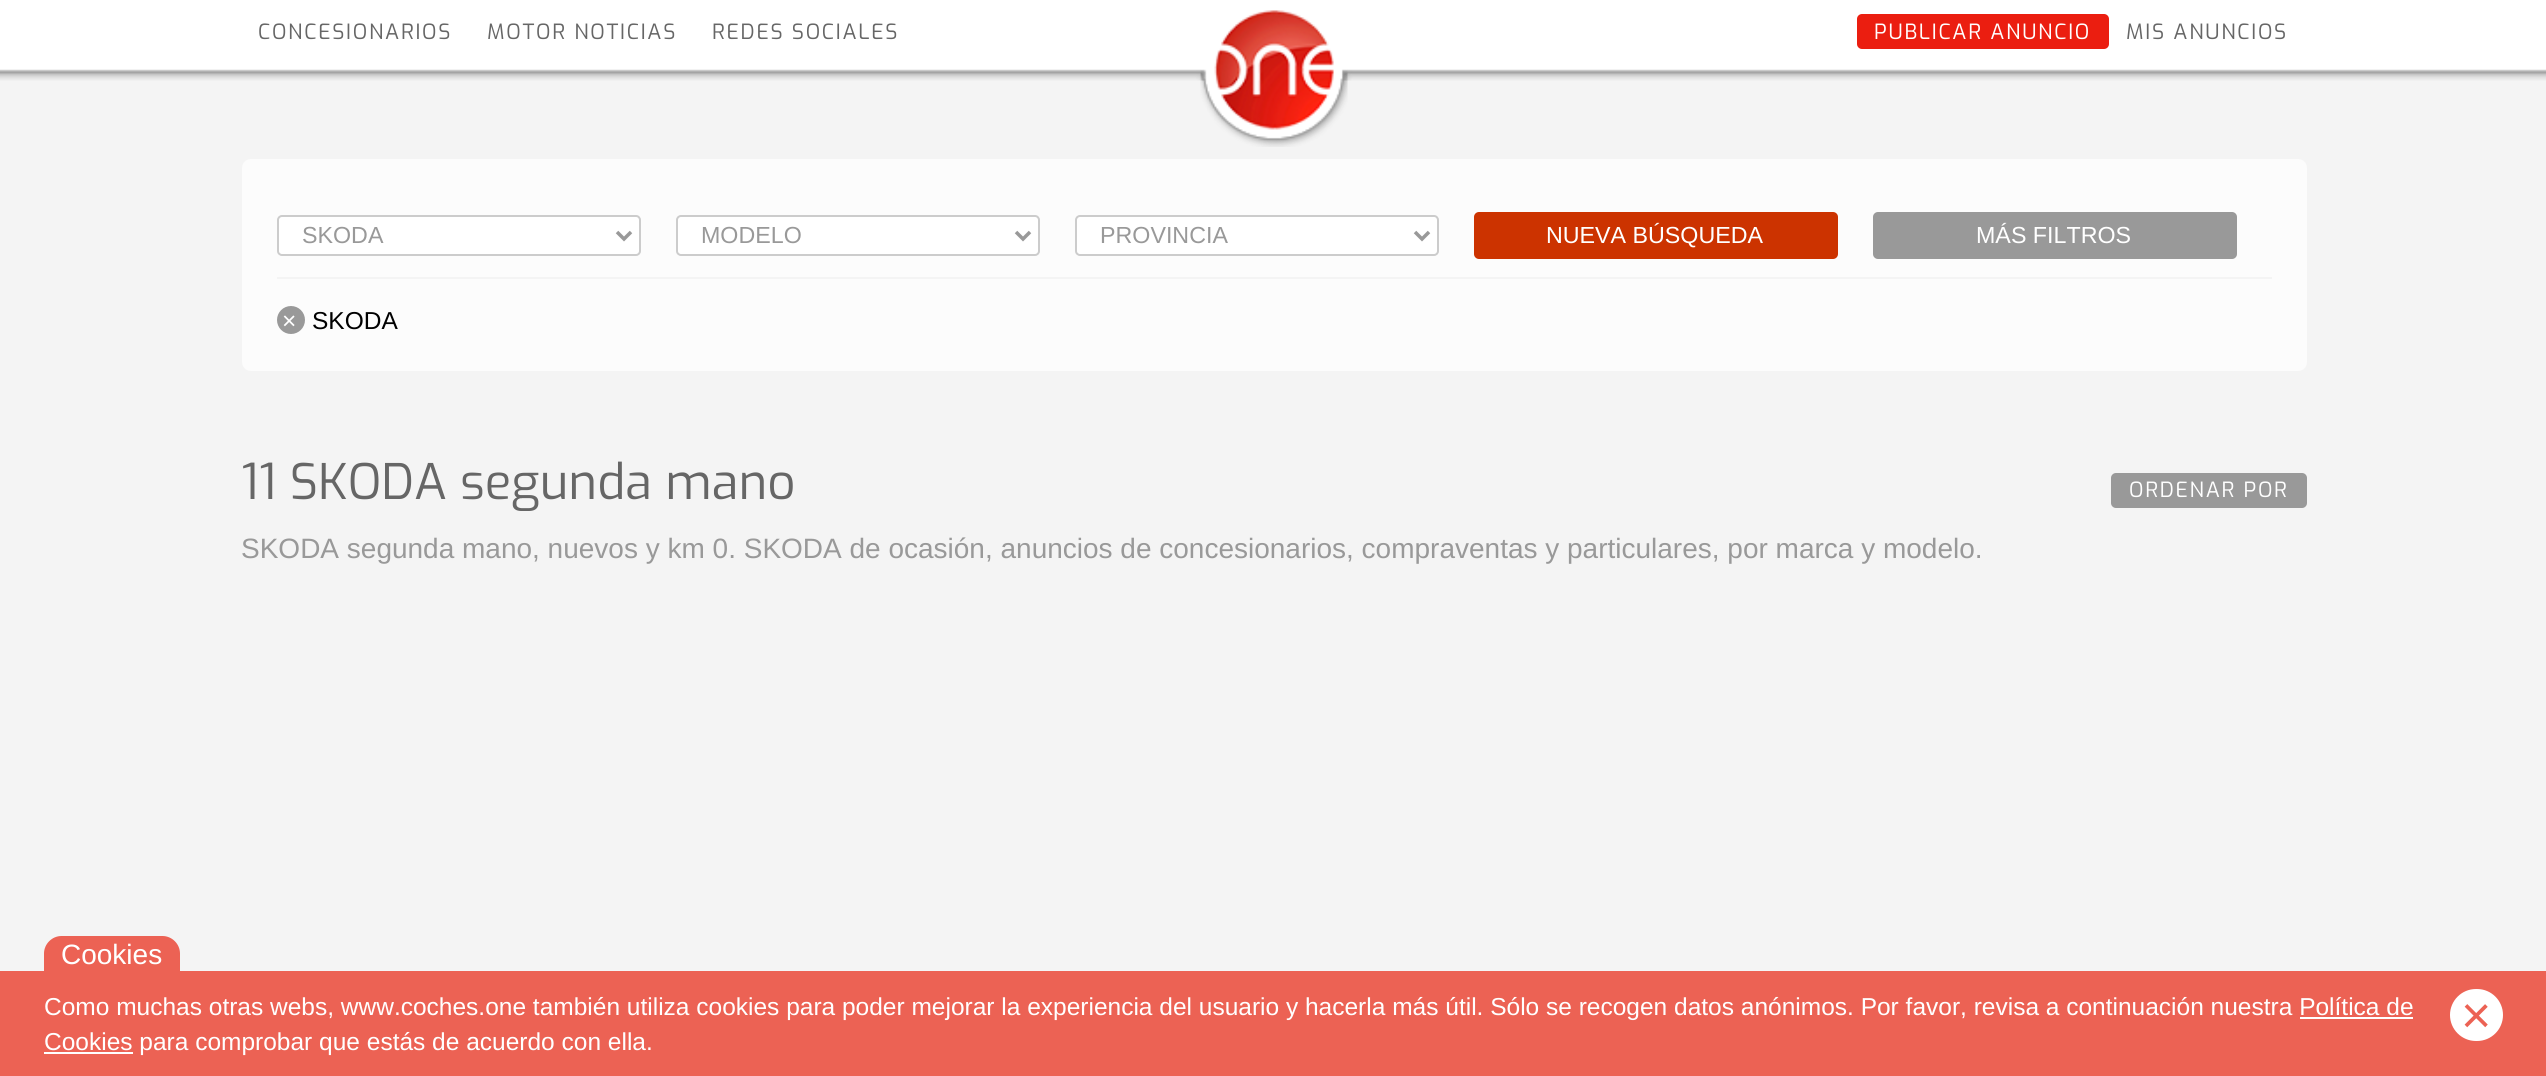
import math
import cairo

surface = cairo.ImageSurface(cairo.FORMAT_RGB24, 2546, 1076)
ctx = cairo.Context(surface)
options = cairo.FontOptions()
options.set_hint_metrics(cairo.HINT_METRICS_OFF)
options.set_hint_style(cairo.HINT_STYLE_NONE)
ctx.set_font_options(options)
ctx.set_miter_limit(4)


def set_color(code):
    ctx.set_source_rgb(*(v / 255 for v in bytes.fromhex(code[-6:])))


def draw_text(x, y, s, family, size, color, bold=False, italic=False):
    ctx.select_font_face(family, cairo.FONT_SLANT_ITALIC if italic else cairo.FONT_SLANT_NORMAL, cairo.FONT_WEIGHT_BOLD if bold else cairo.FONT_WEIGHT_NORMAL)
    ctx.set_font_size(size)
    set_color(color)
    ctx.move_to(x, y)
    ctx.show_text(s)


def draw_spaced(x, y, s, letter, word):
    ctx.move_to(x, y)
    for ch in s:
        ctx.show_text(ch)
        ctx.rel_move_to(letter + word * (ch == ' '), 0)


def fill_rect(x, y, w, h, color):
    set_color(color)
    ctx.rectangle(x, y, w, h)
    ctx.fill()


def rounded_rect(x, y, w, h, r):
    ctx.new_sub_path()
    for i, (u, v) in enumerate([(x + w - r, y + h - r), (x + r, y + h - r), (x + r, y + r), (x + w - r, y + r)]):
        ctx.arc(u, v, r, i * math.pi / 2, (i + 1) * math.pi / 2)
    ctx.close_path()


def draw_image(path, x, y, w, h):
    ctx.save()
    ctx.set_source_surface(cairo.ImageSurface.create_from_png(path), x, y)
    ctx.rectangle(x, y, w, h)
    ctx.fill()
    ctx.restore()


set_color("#f4f4f4")
ctx.paint()
draw_image("assets/img1.png", 0, 0, 2546, 81)
draw_image("assets/img2.png", 1200, 10, 148, 137)
ctx.select_font_face("Exo")
ctx.set_font_size(21)
set_color("#666666")
draw_spaced(258, 39, "CONCESIONARIOS", 1.75, 0)
draw_spaced(487, 39, "MOTOR NOTICIAS", 1.75, 0)
draw_spaced(712, 39, "REDES SOCIALES", 1.75, 0)
set_color("#eb1e10")
rounded_rect(1857, 14, 252, 35, 5)
ctx.fill()
set_color("#ffffff")
draw_spaced(1874, 39, "PUBLICAR ANUNCIO", 1.75, 0)
set_color("#666666")
draw_spaced(2126, 39, "MIS ANUNCIOS", 1.75, 0)
set_color("#fcfcfc")
rounded_rect(242, 159, 2065, 212, 9)
ctx.fill()
set_color("#ffffff")
rounded_rect(278, 216, 362, 39, 4)
ctx.fill_preserve()
set_color("#cccccc")
ctx.stroke()
ctx.new_path()
ctx.move_to(617, 232)
ctx.line_to(624, 239)
ctx.line_to(631, 232)
set_color("#999999")
ctx.set_line_width(3.5)
ctx.stroke()
draw_text(302, 243, "SKODA", "Liberation Sans", 23.25, "#999999")
set_color("#ffffff")
rounded_rect(677, 216, 362, 39, 4)
ctx.fill_preserve()
set_color("#cccccc")
ctx.set_line_width(2)
ctx.stroke()
ctx.new_path()
ctx.move_to(1016, 232)
ctx.line_to(1023, 239)
ctx.line_to(1030, 232)
set_color("#999999")
ctx.set_line_width(3.5)
ctx.stroke()
draw_text(701, 243, "MODELO", "Liberation Sans", 23.25, "#999999")
set_color("#ffffff")
rounded_rect(1076, 216, 362, 39, 4)
ctx.fill_preserve()
set_color("#cccccc")
ctx.set_line_width(2)
ctx.stroke()
ctx.new_path()
ctx.move_to(1415, 232)
ctx.line_to(1422, 239)
ctx.line_to(1429, 232)
set_color("#999999")
ctx.set_line_width(3.5)
ctx.stroke()
draw_text(1100, 243, "PROVINCIA", "Liberation Sans", 23.25, "#999999")
set_color("#cc3300")
rounded_rect(1474, 212, 364, 47, 5)
ctx.fill()
draw_text(1546, 243, "NUEVA BÚSQUEDA", "Liberation Sans", 23.25, "#ffffff")
set_color("#999999")
rounded_rect(1873, 212, 364, 47, 5)
ctx.fill()
draw_text(1976, 243, "MÁS FILTROS", "Liberation Sans", 23.25, "#ffffff")
fill_rect(277, 277, 1995, 2, "#f4f4f4")
set_color("#999999")
ctx.new_path()
ctx.arc(291, 320, 14, 0, 2 * math.pi)
ctx.fill()
draw_text(282, 329, "×", "Liberation Sans", 24.5, "#ffffff")
draw_text(312, 329, "SKODA", "Liberation Sans", 24.5, "#000000")
draw_text(241, 499, "11 SKODA segunda mano", "Exo", 49, "#666666")
set_color("#999999")
rounded_rect(2111, 473, 196, 35, 5)
ctx.fill()
ctx.set_font_size(21)
set_color("#ffffff")
draw_spaced(2129, 497, "ORDENAR POR", 1.75, 0)
draw_text(241, 558, "SKODA segunda mano, nuevos y km 0. SKODA de ocasión, anuncios de concesionarios, compraventas y particulares, por marca y modelo.", "Liberation Sans", 28, "#999999")
fill_rect(0, 971, 2546, 105, "#ec6254")
ctx.new_path()
ctx.move_to(61.5, 936)
ctx.line_to(162.5, 936)
ctx.curve_to(172, 936, 180, 944, 180, 953.5)
ctx.line_to(180, 971)
ctx.line_to(44, 971)
ctx.line_to(44, 953.5)
ctx.curve_to(44, 944, 52, 936, 61.5, 936)
ctx.close_path()
ctx.fill()
draw_text(61, 964, "Cookies", "Liberation Sans", 28, "#ffffff")
draw_text(44, 1015, "Como muchas otras webs, www.coches.one también utiliza cookies para poder mejorar la experiencia del usuario y hacerla más útil. Sólo se recogen datos anónimos. Por favor, revisa a continuación nuestra Política de", "Liberation Sans", 24.5, "#ffffff")
fill_rect(44, 1052, 89, 2, "#ffffff")
draw_text(44, 1050, "Cookies para comprobar que estás de acuerdo con ella.", "Liberation Sans", 24.5, "#ffffff")
fill_rect(2300, 1017, 113, 2, "#ffffff")
rounded_rect(2450, 989, 53, 52, 26)
ctx.fill()
draw_text(2461, 1033, "×", "Liberation Sans", 52, "#ec6254")
surface.write_to_png("output.png")
